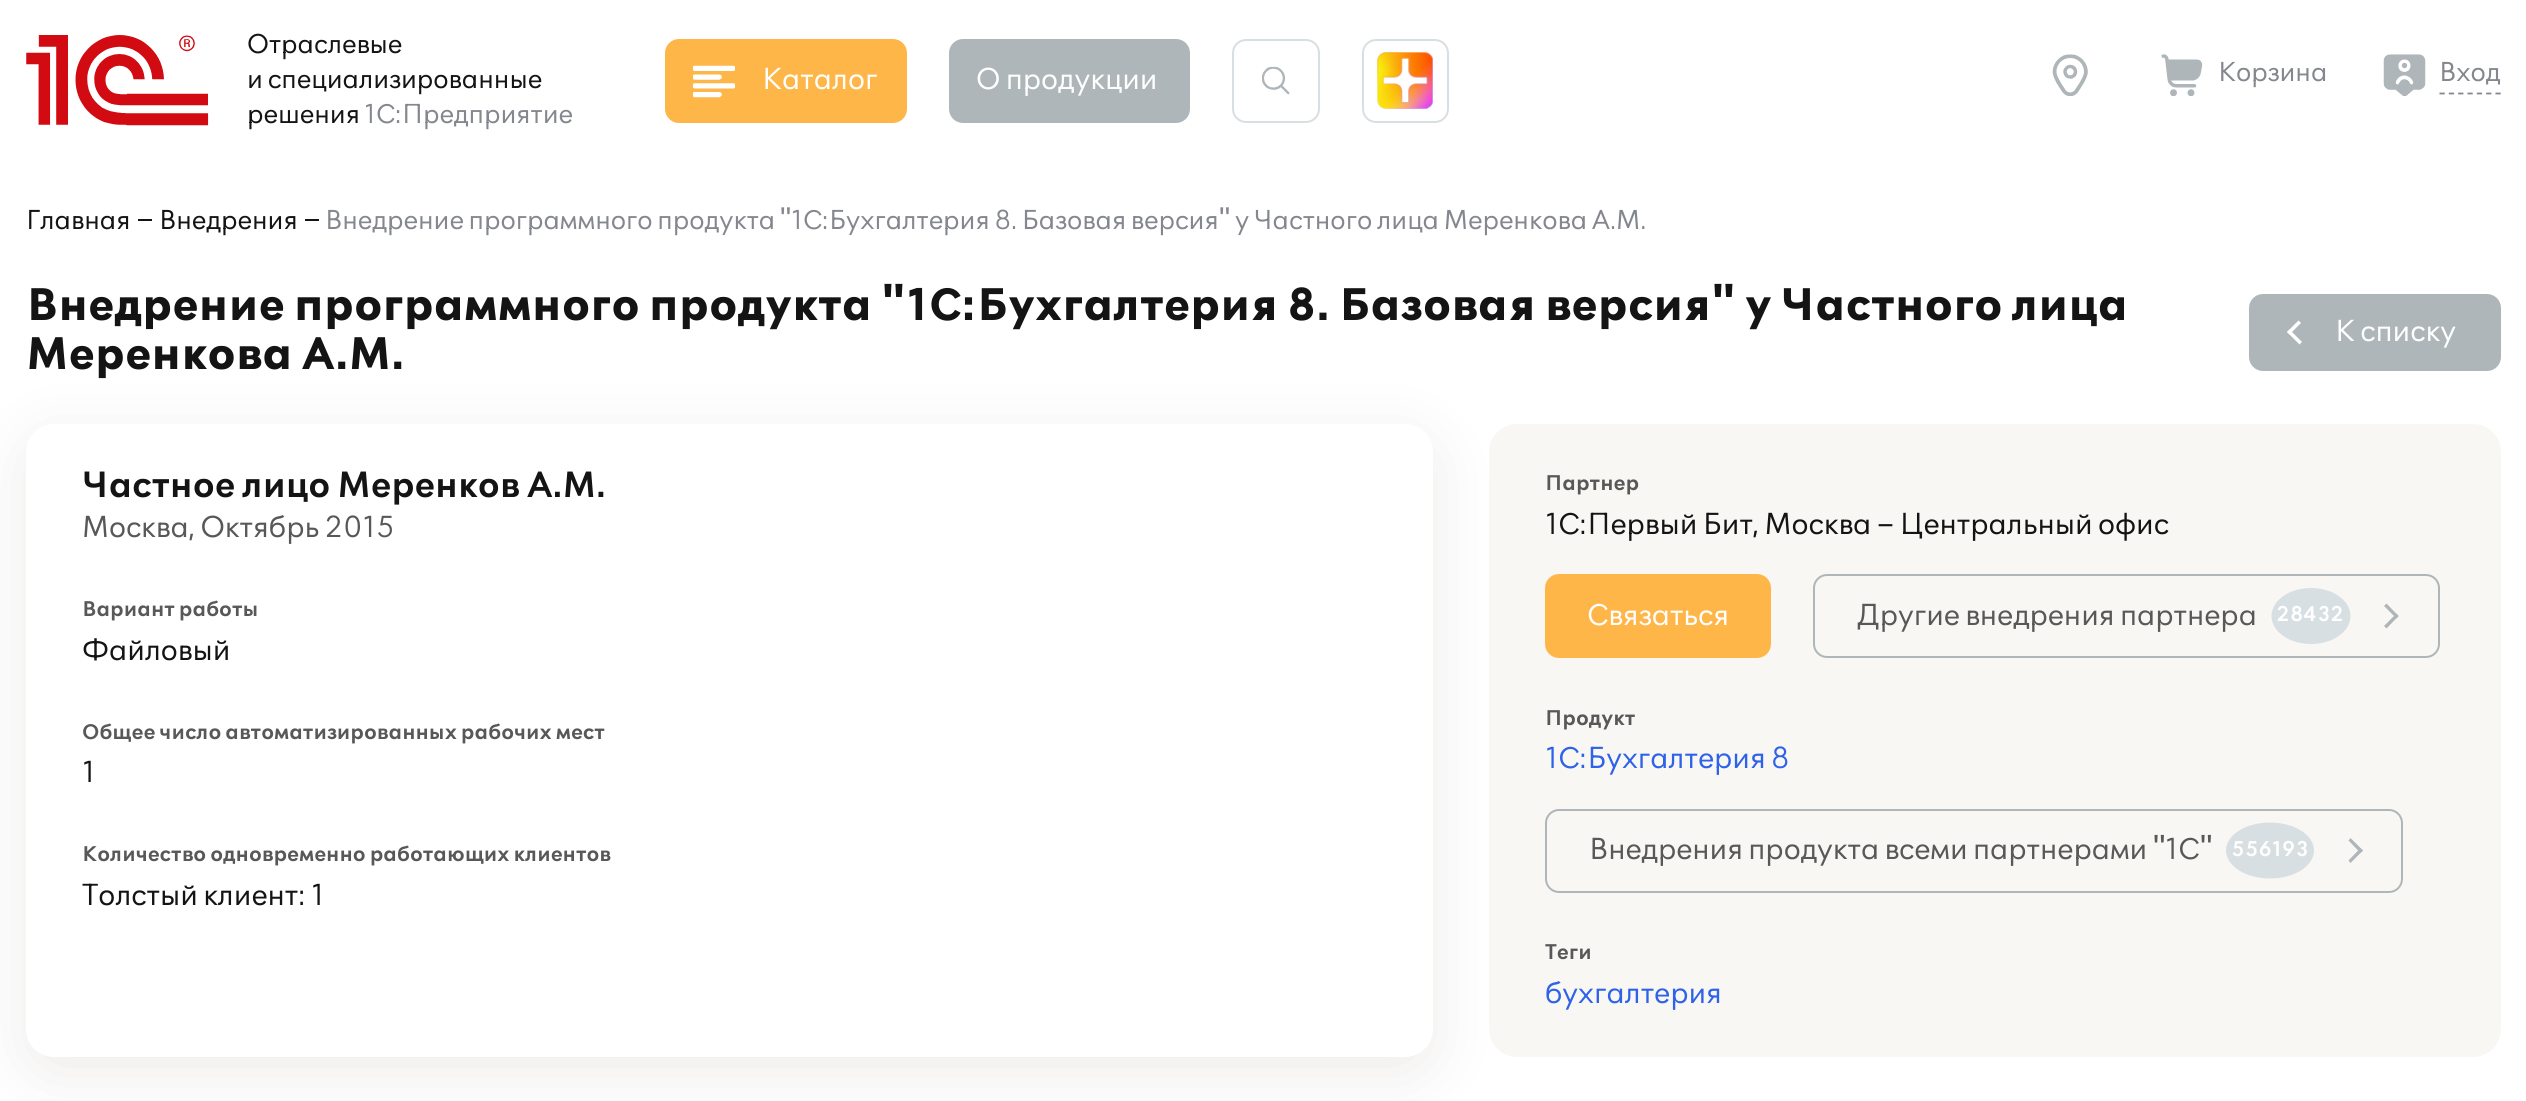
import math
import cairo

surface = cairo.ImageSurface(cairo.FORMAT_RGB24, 2526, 1101)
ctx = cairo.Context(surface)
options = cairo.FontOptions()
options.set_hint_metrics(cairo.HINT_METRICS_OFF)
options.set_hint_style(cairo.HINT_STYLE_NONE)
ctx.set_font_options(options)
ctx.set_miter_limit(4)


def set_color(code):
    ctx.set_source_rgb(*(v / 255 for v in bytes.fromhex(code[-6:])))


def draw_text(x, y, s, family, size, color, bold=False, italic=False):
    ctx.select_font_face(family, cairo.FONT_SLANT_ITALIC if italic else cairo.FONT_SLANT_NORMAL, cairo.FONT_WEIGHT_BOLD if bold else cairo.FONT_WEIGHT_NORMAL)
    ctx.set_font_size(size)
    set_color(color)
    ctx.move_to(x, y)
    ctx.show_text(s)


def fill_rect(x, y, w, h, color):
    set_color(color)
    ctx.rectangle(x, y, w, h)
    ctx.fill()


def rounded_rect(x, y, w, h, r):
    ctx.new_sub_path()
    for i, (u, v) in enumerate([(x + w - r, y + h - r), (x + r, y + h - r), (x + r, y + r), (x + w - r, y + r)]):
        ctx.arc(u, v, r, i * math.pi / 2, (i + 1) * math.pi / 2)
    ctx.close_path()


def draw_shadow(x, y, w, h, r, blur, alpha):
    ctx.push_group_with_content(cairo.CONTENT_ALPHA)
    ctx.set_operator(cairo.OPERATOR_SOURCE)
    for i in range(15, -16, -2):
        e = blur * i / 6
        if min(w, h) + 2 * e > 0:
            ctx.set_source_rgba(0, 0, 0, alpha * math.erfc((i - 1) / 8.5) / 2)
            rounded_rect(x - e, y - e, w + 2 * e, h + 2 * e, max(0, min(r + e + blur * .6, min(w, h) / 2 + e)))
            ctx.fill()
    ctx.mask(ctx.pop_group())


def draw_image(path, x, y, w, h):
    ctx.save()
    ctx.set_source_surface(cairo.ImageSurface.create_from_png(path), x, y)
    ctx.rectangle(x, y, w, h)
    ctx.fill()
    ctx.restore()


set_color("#ffffff")
ctx.paint()
draw_image("assets/img1.png", 26, 35, 183, 91)
draw_text(247, 53, "Отраслевые", "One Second", 31.5, "#141414")
draw_text(247, 88, "и специализированные", "One Second", 31.5, "#141414")
draw_text(247, 123, "решения", "One Second", 31.5, "#141414")
draw_text(364, 123, "1С:Предприятие", "One Second", 31.5, "#85878e")
set_color("#ffb649")
rounded_rect(665, 39, 242, 84, 14)
ctx.fill()
draw_image("assets/img2.png", 693, 65, 42, 33)
draw_text(762, 89, "Каталог", "One Second", 35, "#ffffff")
set_color("#afb6b9")
rounded_rect(949, 39, 241, 84, 14)
ctx.fill()
draw_text(976, 89, "О продукции", "One Second", 35, "#ffffff")
rounded_rect(1233, 40, 86, 82, 13)
set_color("#d8dfe2")
ctx.stroke()
draw_image("assets/img3.png", 1262, 66, 28, 29)
rounded_rect(1363, 40, 85, 82, 13)
ctx.stroke()
draw_image("assets/img4.png", 1377, 52, 56, 57)
draw_image("assets/img5.png", 1377, 52, 56, 57)
draw_image("assets/img6.png", 2052, 54, 36, 43)
draw_image("assets/img7.png", 2161, 54, 42, 43)
draw_text(2218, 81, "Корзина", "One Second", 31.5, "#85878e")
draw_image("assets/img8.png", 2383, 54, 43, 43)
ctx.new_path()
ctx.move_to(2439.5, 93.5)
ctx.line_to(2501, 93.5)
ctx.set_line_width(1.8)
ctx.set_dash([5.25, 4.08])
ctx.stroke()
draw_text(2439, 81, "Вход", "One Second", 31.5, "#85878e")
draw_text(26, 229, "Главная", "One Second", 31.5, "#141414")
fill_rect(138, 219, 14, 2, "#141414")
draw_text(159, 229, "Внедрения", "One Second", 31.5, "#141414")
fill_rect(305, 219, 14, 2, "#141414")
draw_text(325, 229, "Внедрение программного продукта", "One Second", 31.5, "#85878e")
draw_text(780, 229, "\"", "Liberation Sans", 31.5, "#85878e")
draw_text(791, 229, "1С:Бухгалтерия 8. Базовая версия", "One Second", 31.5, "#85878e")
draw_text(1219, 229, "\"", "Liberation Sans", 31.5, "#85878e")
draw_text(1235, 229, "у Частного лица Меренкова А.М.", "One Second", 31.5, "#85878e")
draw_text(26, 320, "Внедрение программного продукта", "One Second", 52.5, "#141414", bold=True)
draw_text(881, 320, "\"", "Liberation Sans", 52.5, "#141414", bold=True)
draw_text(906, 320, "1С:Бухгалтерия 8. Базовая версия", "One Second", 52.5, "#141414", bold=True)
draw_text(1711, 320, "\"", "Liberation Sans", 52.5, "#141414", bold=True)
draw_text(1745, 320, "у Частного лица", "One Second", 52.5, "#141414", bold=True)
draw_text(26, 369, "Меренкова А.М.", "One Second", 52.5, "#141414", bold=True)
set_color("#afb6b9")
rounded_rect(2249, 294, 252, 77, 14)
ctx.fill()
set_color("#ffffff")
ctx.new_path()
ctx.move_to(2287, 332)
ctx.line_to(2298.5, 320.5)
ctx.line_to(2301, 323)
ctx.line_to(2289.5, 334.5)
ctx.close_path()
ctx.fill()
ctx.new_path()
ctx.move_to(2287, 332)
ctx.line_to(2289.5, 329.5)
ctx.line_to(2302, 342)
ctx.line_to(2299.5, 344.5)
ctx.close_path()
ctx.fill()
draw_text(2335, 341, "К списку", "One Second", 35, "#ffffff")
set_color("#553e2d")
draw_shadow(26, 439, 1407, 634, 28, 30.5, 0.1)
set_color("#ffffff")
rounded_rect(26, 424, 1407, 633, 28)
ctx.fill()
draw_text(82, 497, "Частное лицо Меренков А.М.", "One Second SemiBold", 42, "#141414")
draw_text(82, 537, "Москва, Октябрь 2015", "One Second", 35, "#585858")
draw_text(82, 616, "Вариант работы", "One Second SemiBold", 24.5, "#585858")
draw_text(82, 660, "Файловый", "One Second", 35, "#141414")
draw_text(82, 739, "Общее число автоматизированных рабочих мест", "One Second SemiBold", 24.5, "#585858")
draw_text(82, 782, "1", "One Second", 35, "#141414")
draw_text(82, 861, "Количество одновременно работающих клиентов", "One Second SemiBold", 24.5, "#585858")
draw_text(82, 905, "Толстый клиент: 1", "One Second", 35, "#141414")
set_color("#f9f7f3")
rounded_rect(1489, 424, 1012, 633, 28)
ctx.fill()
draw_text(1545, 490, "Партнер", "One Second SemiBold", 24.5, "#585858")
draw_text(1545, 534, "1С:Первый Бит, Москва – Центральный офис", "One Second", 35, "#141414")
set_color("#ffb649")
rounded_rect(1545, 574, 226, 84, 14)
ctx.fill()
draw_text(1587, 625, "Связаться", "One Second", 35, "#ffffff")
rounded_rect(1814, 575, 625, 82, 13)
set_color("#afb6b9")
ctx.set_line_width(2)
ctx.set_dash([])
ctx.stroke()
draw_text(1857, 625, "Другие внедрения партнера", "One Second", 35, "#585858")
set_color("#d8dfe2")
ctx.new_path()
ctx.move_to(2311, 588)
ctx.curve_to(2333, 588, 2350.5, 600.5, 2350.5, 616)
ctx.curve_to(2350.5, 631.5, 2333, 644, 2311, 644)
ctx.curve_to(2289, 644, 2271.5, 631.5, 2271.5, 616)
ctx.curve_to(2271.5, 600.5, 2289, 588, 2311, 588)
ctx.close_path()
ctx.fill()
draw_text(2276, 621, "28432", "One Second SemiBold", 24.5, "#ffffff")
set_color("#afb6b9")
ctx.new_path()
ctx.move_to(2386.5, 603.5)
ctx.line_to(2398.5, 616)
ctx.line_to(2396.5, 618.5)
ctx.line_to(2384, 606)
ctx.close_path()
ctx.fill()
ctx.new_path()
ctx.move_to(2396.5, 613.5)
ctx.line_to(2398.5, 616)
ctx.line_to(2386.5, 628.5)
ctx.line_to(2384, 626)
ctx.close_path()
ctx.fill()
draw_text(1545, 725, "Продукт", "One Second SemiBold", 24.5, "#585858")
draw_text(1545, 768, "1С:Бухгалтерия 8", "One Second", 35, "#2e62e9")
rounded_rect(1546, 810, 856, 82, 13)
set_color("#afb6b9")
ctx.stroke()
draw_text(1589, 859, "Внедрения продукта всеми партнерами", "One Second", 35, "#585858")
draw_text(2153, 859, "\"", "Liberation Sans", 35, "#585858")
draw_text(2165, 859, "1С", "One Second", 35, "#585858")
draw_text(2200, 859, "\"", "Liberation Sans", 35, "#585858")
set_color("#d8dfe2")
ctx.new_path()
ctx.move_to(2270, 822.5)
ctx.curve_to(2294.5, 822.5, 2314, 835, 2314, 850.5)
ctx.curve_to(2314, 866, 2294.5, 878.5, 2270, 878.5)
ctx.curve_to(2245.5, 878.5, 2226, 866, 2226, 850.5)
ctx.curve_to(2226, 835, 2245.5, 822.5, 2270, 822.5)
ctx.close_path()
ctx.fill()
draw_text(2231, 856, "556193", "One Second SemiBold", 24.5, "#ffffff")
set_color("#afb6b9")
ctx.new_path()
ctx.move_to(2350.5, 838)
ctx.line_to(2363, 850.5)
ctx.line_to(2360.5, 853)
ctx.line_to(2348.5, 840.5)
ctx.close_path()
ctx.fill()
ctx.new_path()
ctx.move_to(2360.5, 848)
ctx.line_to(2363, 850.5)
ctx.line_to(2350.5, 863)
ctx.line_to(2348.5, 860.5)
ctx.close_path()
ctx.fill()
draw_text(1545, 959, "Теги", "One Second SemiBold", 24.5, "#585858")
draw_text(1545, 1003, "бухгалтерия", "One Second", 35, "#2e62e9")
surface.write_to_png("output.png")
